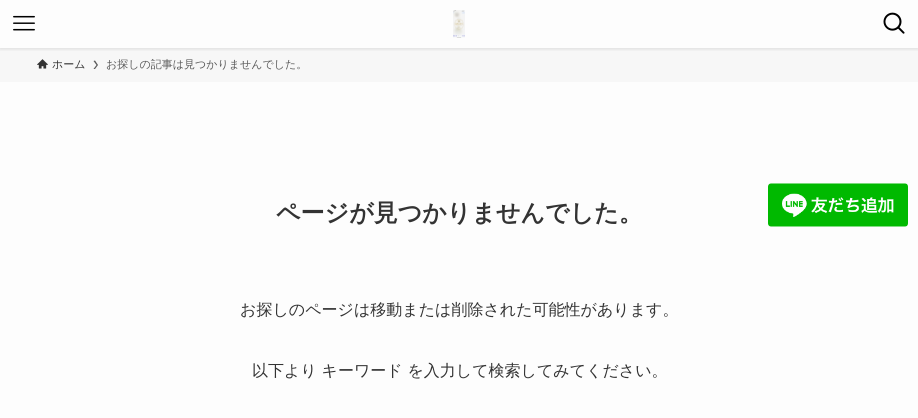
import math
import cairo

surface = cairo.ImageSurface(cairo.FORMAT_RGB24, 918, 418)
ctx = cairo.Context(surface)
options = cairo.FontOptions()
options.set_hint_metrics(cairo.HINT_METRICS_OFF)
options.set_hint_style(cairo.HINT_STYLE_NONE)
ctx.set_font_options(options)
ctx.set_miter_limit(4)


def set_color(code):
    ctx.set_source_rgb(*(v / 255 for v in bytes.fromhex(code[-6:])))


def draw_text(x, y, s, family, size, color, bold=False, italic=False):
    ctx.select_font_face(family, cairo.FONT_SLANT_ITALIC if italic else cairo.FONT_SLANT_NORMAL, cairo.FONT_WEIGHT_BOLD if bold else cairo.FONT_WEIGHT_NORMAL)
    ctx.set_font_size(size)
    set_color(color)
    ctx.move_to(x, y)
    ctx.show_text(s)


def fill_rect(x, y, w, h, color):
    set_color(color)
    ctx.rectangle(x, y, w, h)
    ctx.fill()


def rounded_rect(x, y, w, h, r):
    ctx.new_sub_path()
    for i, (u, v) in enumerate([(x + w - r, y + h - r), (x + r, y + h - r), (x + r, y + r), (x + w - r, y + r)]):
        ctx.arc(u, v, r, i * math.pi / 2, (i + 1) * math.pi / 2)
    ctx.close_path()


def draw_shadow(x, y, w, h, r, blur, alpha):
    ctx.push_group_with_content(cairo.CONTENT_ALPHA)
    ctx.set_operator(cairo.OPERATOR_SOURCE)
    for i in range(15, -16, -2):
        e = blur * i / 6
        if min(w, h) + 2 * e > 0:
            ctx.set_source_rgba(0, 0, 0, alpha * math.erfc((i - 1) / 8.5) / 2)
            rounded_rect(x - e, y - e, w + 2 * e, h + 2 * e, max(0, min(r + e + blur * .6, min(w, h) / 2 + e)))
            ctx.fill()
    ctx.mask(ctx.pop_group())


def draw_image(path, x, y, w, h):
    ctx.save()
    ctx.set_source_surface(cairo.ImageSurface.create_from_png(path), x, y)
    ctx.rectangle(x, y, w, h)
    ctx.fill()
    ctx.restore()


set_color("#fdfdfd")
ctx.paint()
fill_rect(0, 48, 918, 34, "#f7f7f7")
ctx.save()
ctx.rectangle(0, 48, 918, 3)
ctx.clip()
set_color("#000000")
draw_shadow(0, 1, 918, 48, 0, 2, 0.12)
ctx.restore()
draw_image("assets/img1.png", 13, 15, 22, 16)
draw_image("assets/img2.png", 453, 10, 12, 28)
draw_image("assets/img3.png", 883, 12, 22, 22)
draw_image("assets/img4.png", 37, 59, 11, 10)
draw_text(52, 68, "ホーム", "WenQuanYi Zen Hei Medium", 11, "#333333")
set_color("#5a5a5a")
ctx.new_path()
ctx.move_to(95, 60.5)
ctx.line_to(93.5, 61)
ctx.line_to(96.5, 65)
ctx.line_to(93.5, 69)
ctx.line_to(95, 69)
ctx.line_to(98, 65)
ctx.close_path()
ctx.fill()
draw_text(106, 68, "お探しの記事は見つかりませんでした。", "WenQuanYi Zen Hei Medium", 11, "#5a5a5a")
draw_text(276, 221, "ページが見つかりませんでした。", "WenQuanYi Zen Hei", 24, "#333333", bold=True)
draw_text(240, 315, "お探しのページは移動または削除された可能性があります。", "WenQuanYi Zen Hei Medium", 16, "#333333")
draw_text(252, 376, "以下より キーワード を入力して検索してみてください。", "WenQuanYi Zen Hei Medium", 16, "#333333")
draw_image("assets/img5.png", 768, 183, 140, 44)
surface.write_to_png("output.png")
